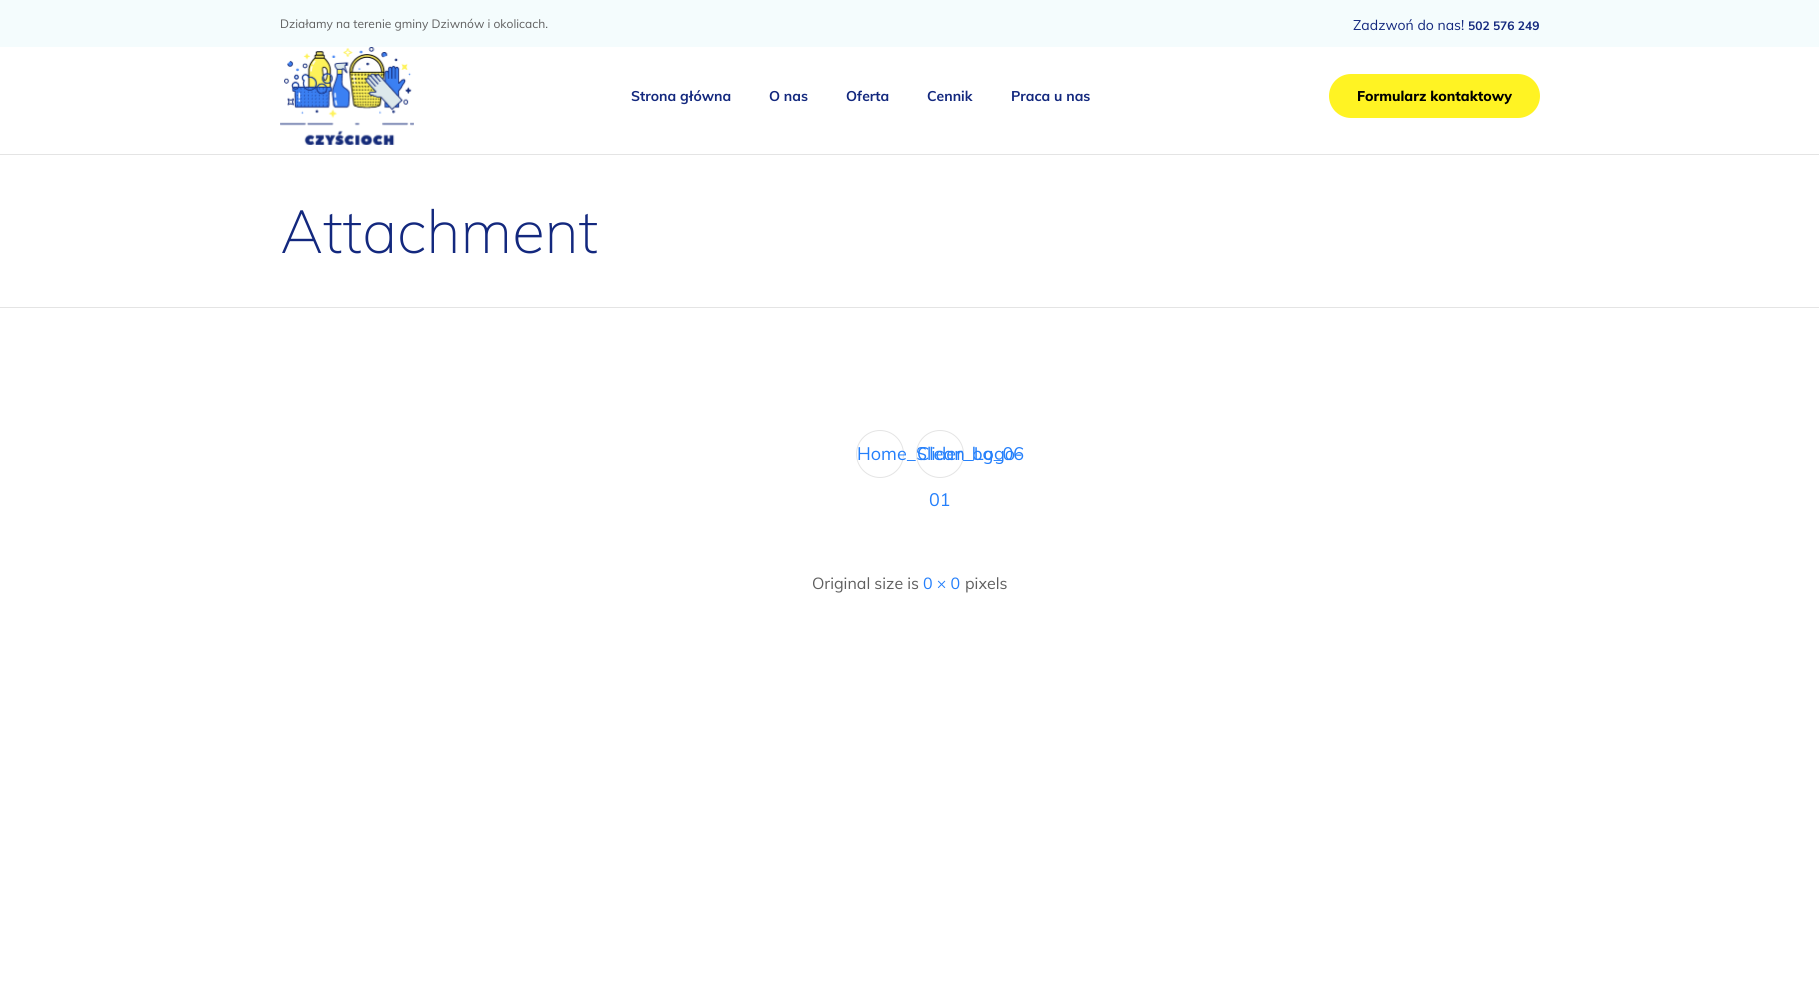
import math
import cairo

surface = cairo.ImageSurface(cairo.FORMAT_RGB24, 1819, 1000)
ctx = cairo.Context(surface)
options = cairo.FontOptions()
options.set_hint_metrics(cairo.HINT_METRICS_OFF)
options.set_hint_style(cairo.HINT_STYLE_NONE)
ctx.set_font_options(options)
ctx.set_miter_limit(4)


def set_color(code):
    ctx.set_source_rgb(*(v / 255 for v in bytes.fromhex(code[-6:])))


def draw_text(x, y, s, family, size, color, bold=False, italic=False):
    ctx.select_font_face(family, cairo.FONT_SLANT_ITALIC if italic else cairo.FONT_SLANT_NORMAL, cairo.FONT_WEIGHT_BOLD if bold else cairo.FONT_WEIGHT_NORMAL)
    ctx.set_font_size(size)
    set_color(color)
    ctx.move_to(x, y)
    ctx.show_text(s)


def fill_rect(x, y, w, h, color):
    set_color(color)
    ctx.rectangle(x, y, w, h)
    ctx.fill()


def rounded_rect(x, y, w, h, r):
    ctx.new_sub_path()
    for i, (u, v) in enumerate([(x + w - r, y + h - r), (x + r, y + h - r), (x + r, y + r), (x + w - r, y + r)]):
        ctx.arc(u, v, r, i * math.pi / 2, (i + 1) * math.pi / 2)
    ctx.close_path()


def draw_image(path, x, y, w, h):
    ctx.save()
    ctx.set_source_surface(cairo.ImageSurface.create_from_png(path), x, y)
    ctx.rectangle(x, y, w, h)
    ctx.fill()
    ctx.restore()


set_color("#ffffff")
ctx.paint()
fill_rect(0, 0, 1819, 47, "#f4fcfd")
draw_text(280, 28, "Działamy na terenie gminy Dziwnów i okolicach.", "Muli", 12, "#5f5f5f")
draw_text(1353, 30, "Zadzwoń do nas!", "Muli", 14, "#13287e")
draw_text(1468, 30, "502 576 249", "Muli", 12, "#13287e", bold=True)
draw_image("assets/img1.png", 280, 47, 134, 98)
draw_text(631, 101, "Strona główna", "Muli", 14, "#13287e", bold=True)
draw_text(769, 101, "O nas", "Muli", 14, "#13287e", bold=True)
draw_text(846, 101, "Oferta", "Muli", 14, "#13287e", bold=True)
draw_text(927, 101, "Cennik", "Muli", 14, "#13287e", bold=True)
draw_text(1011, 101, "Praca u nas", "Muli", 14, "#13287e", bold=True)
set_color("#fff323")
rounded_rect(1329, 74, 211, 44, 22)
ctx.fill()
draw_text(1357, 101, "Formularz kontaktowy", "Muli ExtraBold", 14, "#000000")
fill_rect(0, 154, 1819, 1, "#e4e4e4")
fill_rect(0, 307, 1819, 1, "#e4e4e4")
draw_text(280, 253, "Attachment", "Muli ExtraLight", 60, "#13287e")
ctx.new_path()
ctx.arc(880, 454, 23.5, 0, 2 * math.pi)
set_color("#e4e4e4")
ctx.set_line_width(1)
ctx.stroke()
draw_text(857, 460, "Home_Slider_bg_06", "Muli", 18, "#247ffb")
ctx.new_path()
ctx.arc(940, 454, 23.5, 0, 2 * math.pi)
set_color("#e4e4e4")
ctx.stroke()
draw_text(917, 460, "Clean_Logo-", "Muli", 18, "#247ffb")
draw_text(929, 506, "01", "Muli", 18, "#247ffb")
draw_text(812, 589, "Original size is", "Muli", 16, "#5f5f5f")
draw_text(923, 589, "0 × 0", "Muli", 16, "#247ffb")
draw_text(965, 589, "pixels", "Muli", 16, "#5f5f5f")
surface.write_to_png("output.png")
